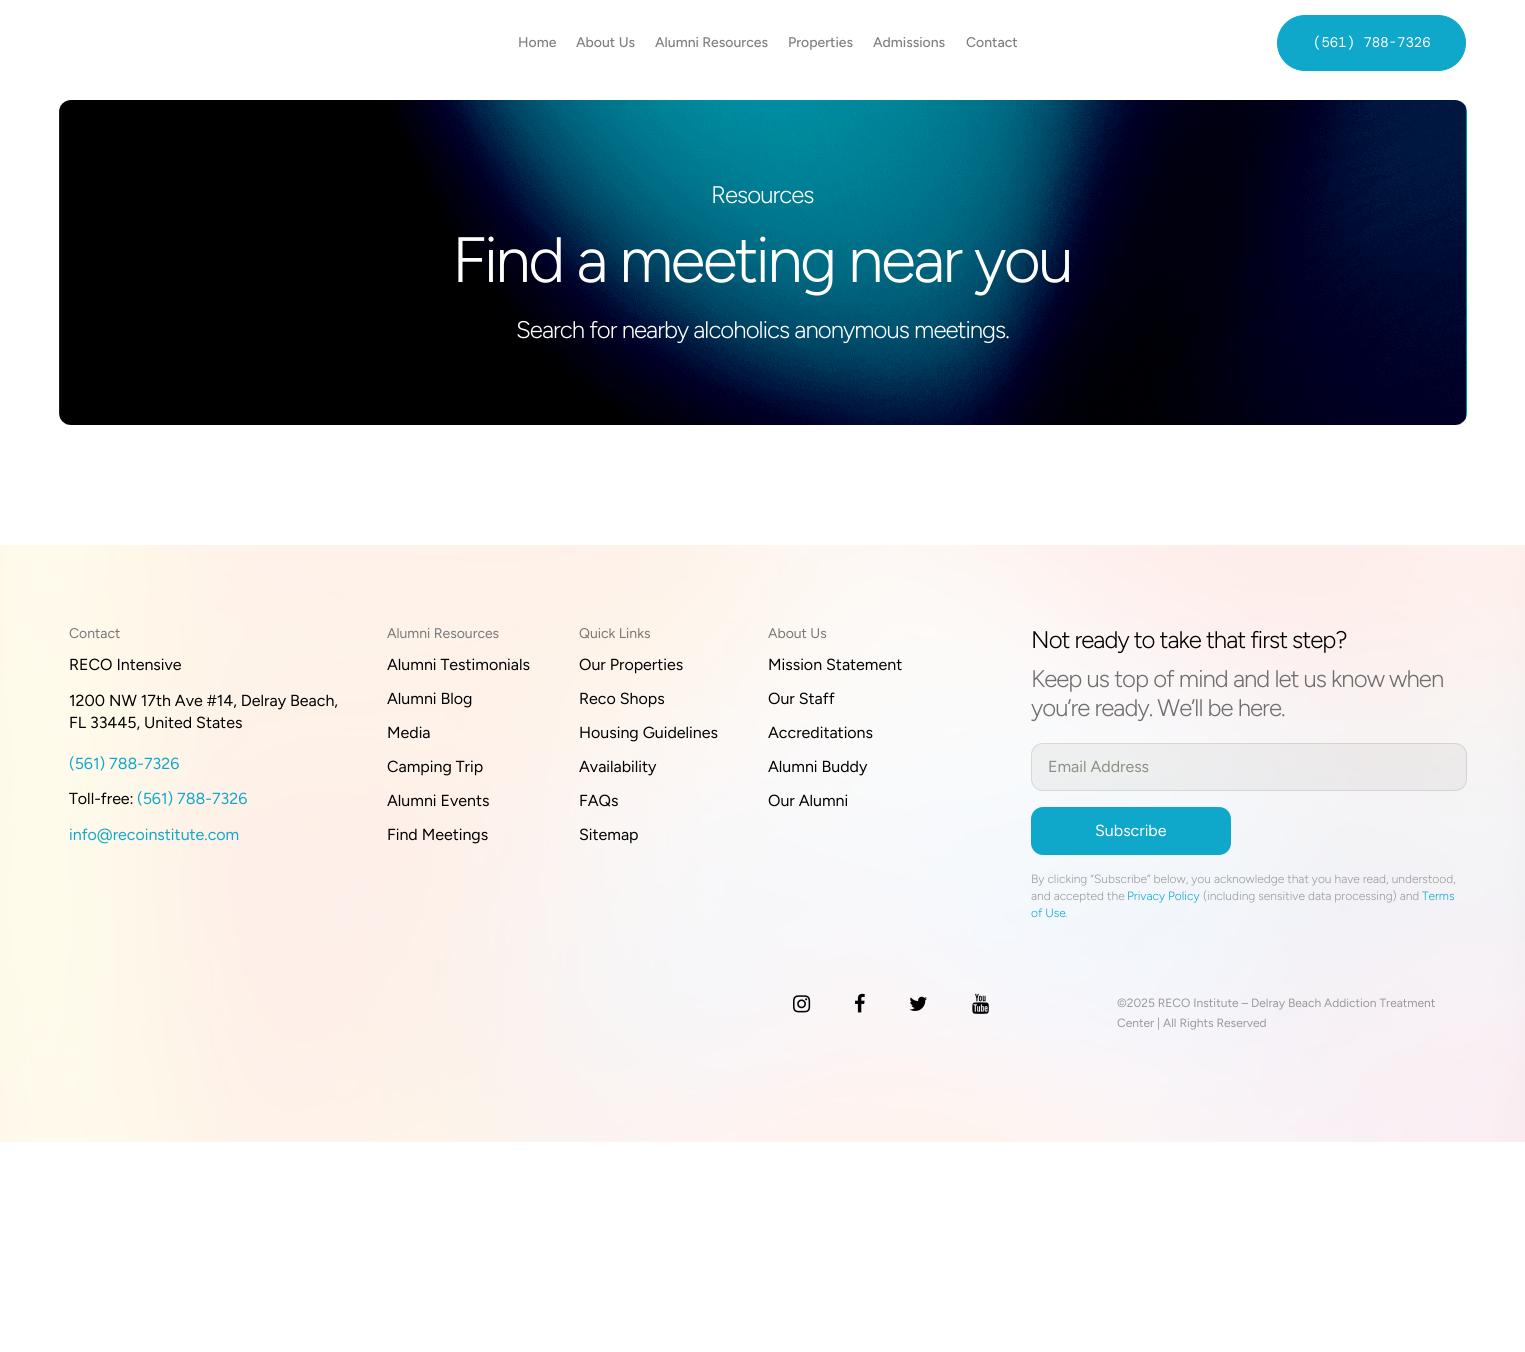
import math
import cairo

surface = cairo.ImageSurface(cairo.FORMAT_RGB24, 1525, 1352)
ctx = cairo.Context(surface)
options = cairo.FontOptions()
options.set_hint_metrics(cairo.HINT_METRICS_OFF)
options.set_hint_style(cairo.HINT_STYLE_NONE)
ctx.set_font_options(options)
ctx.set_miter_limit(4)


def set_color(code):
    ctx.set_source_rgb(*(v / 255 for v in bytes.fromhex(code[-6:])))


def draw_text(x, y, s, family, size, color, bold=False, italic=False):
    ctx.select_font_face(family, cairo.FONT_SLANT_ITALIC if italic else cairo.FONT_SLANT_NORMAL, cairo.FONT_WEIGHT_BOLD if bold else cairo.FONT_WEIGHT_NORMAL)
    ctx.set_font_size(size)
    set_color(color)
    ctx.move_to(x, y)
    ctx.show_text(s)


def draw_spaced(x, y, s, letter, word):
    ctx.move_to(x, y)
    for ch in s:
        ctx.show_text(ch)
        ctx.rel_move_to(letter + word * (ch == ' '), 0)


def rounded_rect(x, y, w, h, r):
    ctx.new_sub_path()
    for i, (u, v) in enumerate([(x + w - r, y + h - r), (x + r, y + h - r), (x + r, y + r), (x + w - r, y + r)]):
        ctx.arc(u, v, r, i * math.pi / 2, (i + 1) * math.pi / 2)
    ctx.close_path()


def draw_image(path, x, y, w, h):
    ctx.save()
    ctx.set_source_surface(cairo.ImageSurface.create_from_png(path), x, y)
    ctx.rectangle(x, y, w, h)
    ctx.fill()
    ctx.restore()


set_color("#ffffff")
ctx.paint()
draw_text(518, 47, "Home", "Figtree Medium", 14, "#808080")
draw_text(576, 47, "About Us", "Figtree Medium", 14, "#808080")
draw_text(655, 47, "Alumni Resources", "Figtree Medium", 14, "#808080")
draw_text(788, 47, "Properties", "Figtree Medium", 14, "#808080")
draw_text(873, 47, "Admissions", "Figtree Medium", 14, "#808080")
draw_text(966, 47, "Contact", "Figtree Medium", 14, "#808080")
set_color("#10a8ca")
rounded_rect(1277.5, 15.5, 188, 55, 27.5)
ctx.fill_preserve()
ctx.set_line_width(1)
ctx.stroke()
draw_text(1313, 47, "(561) 788-7326", "DM Mono", 14, "#ffffff")
draw_image("assets/img1.png", 59, 100, 1408, 325)
ctx.select_font_face("Figtree Light")
ctx.set_font_size(24)
draw_spaced(711, 203, "Resources", -0.95, 0)
ctx.set_font_size(64)
draw_spaced(452, 282, "Find a meeting near you", -2.6, 0)
ctx.set_font_size(24)
draw_spaced(516, 338, "Search for nearby alcoholics anonymous meetings.", -0.95, 0)
draw_image("assets/img2.png", 0, 545, 1525, 597)
draw_text(69, 638, "Contact", "Figtree", 14, "#777777")
draw_text(69, 670, "RECO Intensive", "Figtree", 16, "#000000")
draw_text(69, 706, "1200 NW 17th Ave #14, Delray Beach,", "Figtree", 16, "#000000")
draw_text(69, 728, "FL 33445, United States", "Figtree", 16, "#000000")
draw_text(69, 769, "(561) 788-7326", "Figtree", 16, "#10a8ca")
draw_text(69, 804, "Toll-free:", "Figtree", 16, "#000000")
draw_text(137, 804, "(561) 788-7326", "Figtree", 16, "#10a8ca")
draw_text(69, 840, "info@recoinstitute.com", "Figtree", 16, "#10a8ca")
draw_text(387, 638, "Alumni Resources", "Figtree", 14, "#777777")
draw_text(387, 670, "Alumni Testimonials", "Figtree", 16, "#000000")
draw_text(387, 704, "Alumni Blog", "Figtree", 16, "#000000")
draw_text(387, 738, "Media", "Figtree", 16, "#000000")
draw_text(387, 772, "Camping Trip", "Figtree", 16, "#000000")
draw_text(387, 806, "Alumni Events", "Figtree", 16, "#000000")
draw_text(387, 840, "Find Meetings", "Figtree", 16, "#000000")
draw_text(579, 638, "Quick Links", "Figtree", 14, "#777777")
draw_text(579, 670, "Our Properties", "Figtree", 16, "#000000")
draw_text(579, 704, "Reco Shops", "Figtree", 16, "#000000")
draw_text(579, 738, "Housing Guidelines", "Figtree", 16, "#000000")
draw_text(579, 772, "Availability", "Figtree", 16, "#000000")
draw_text(579, 806, "FAQs", "Figtree", 16, "#000000")
draw_text(579, 840, "Sitemap", "Figtree", 16, "#000000")
draw_text(768, 638, "About Us", "Figtree", 14, "#777777")
draw_text(768, 670, "Mission Statement", "Figtree", 16, "#000000")
draw_text(768, 704, "Our Staff", "Figtree", 16, "#000000")
draw_text(768, 738, "Accreditations", "Figtree", 16, "#000000")
draw_text(768, 772, "Alumni Buddy", "Figtree", 16, "#000000")
draw_text(768, 806, "Our Alumni", "Figtree", 16, "#000000")
ctx.select_font_face("Figtree Light")
ctx.set_font_size(24)
draw_spaced(1031, 648, "Not ready to take that first step?", -0.95, 0)
set_color("#6f6f6f")
draw_spaced(1031, 687, "Keep us top of mind and let us know when", -0.95, 0)
draw_spaced(1031, 716, "you’re ready. We’ll be here.", -0.95, 0)
ctx.set_source_rgba(0.561, 0.557, 0.518, 0.1)
rounded_rect(1031, 743, 436, 48, 12)
ctx.fill()
rounded_rect(1031.5, 743.5, 435, 47, 11.5)
ctx.set_source_rgba(0, 0, 0, 0.1)
ctx.stroke()
draw_text(1048, 772, "Email Address", "Figtree", 16, "#8f8e84")
set_color("#10a8ca")
rounded_rect(1031, 807, 200, 48, 12)
ctx.fill()
draw_text(1095, 836, "Subscribe", "Figtree", 16, "#ffffff")
draw_text(1031, 883, "By clicking “Subscribe” below, you acknowledge that you have read, understood,", "Figtree Light", 12, "#999999")
draw_text(1031, 900, "and accepted the", "Figtree Light", 12, "#999999")
draw_text(1127, 900, "Privacy Policy", "Figtree Light", 12, "#10a8ca")
draw_text(1203, 900, "(including sensitive data processing) and", "Figtree Light", 12, "#999999")
draw_text(1422, 900, "Terms", "Figtree Light", 12, "#10a8ca")
draw_text(1031, 917, "of Use", "Figtree Light", 12, "#10a8ca")
draw_text(1065, 917, ".", "Figtree Light", 12, "#999999")
draw_image("assets/img3.png", 793, 995, 18, 18)
draw_image("assets/img4.png", 855, 993, 10, 20)
draw_image("assets/img5.png", 909, 996, 18, 15)
draw_image("assets/img6.png", 972, 993, 17, 21)
draw_text(1117, 1007, "©2025 RECO Institute – Delray Beach Addiction Treatment", "Figtree", 12, "#999999")
draw_text(1117, 1027, "Center | All Rights Reserved", "Figtree", 12, "#999999")
surface.write_to_png("output.png")
